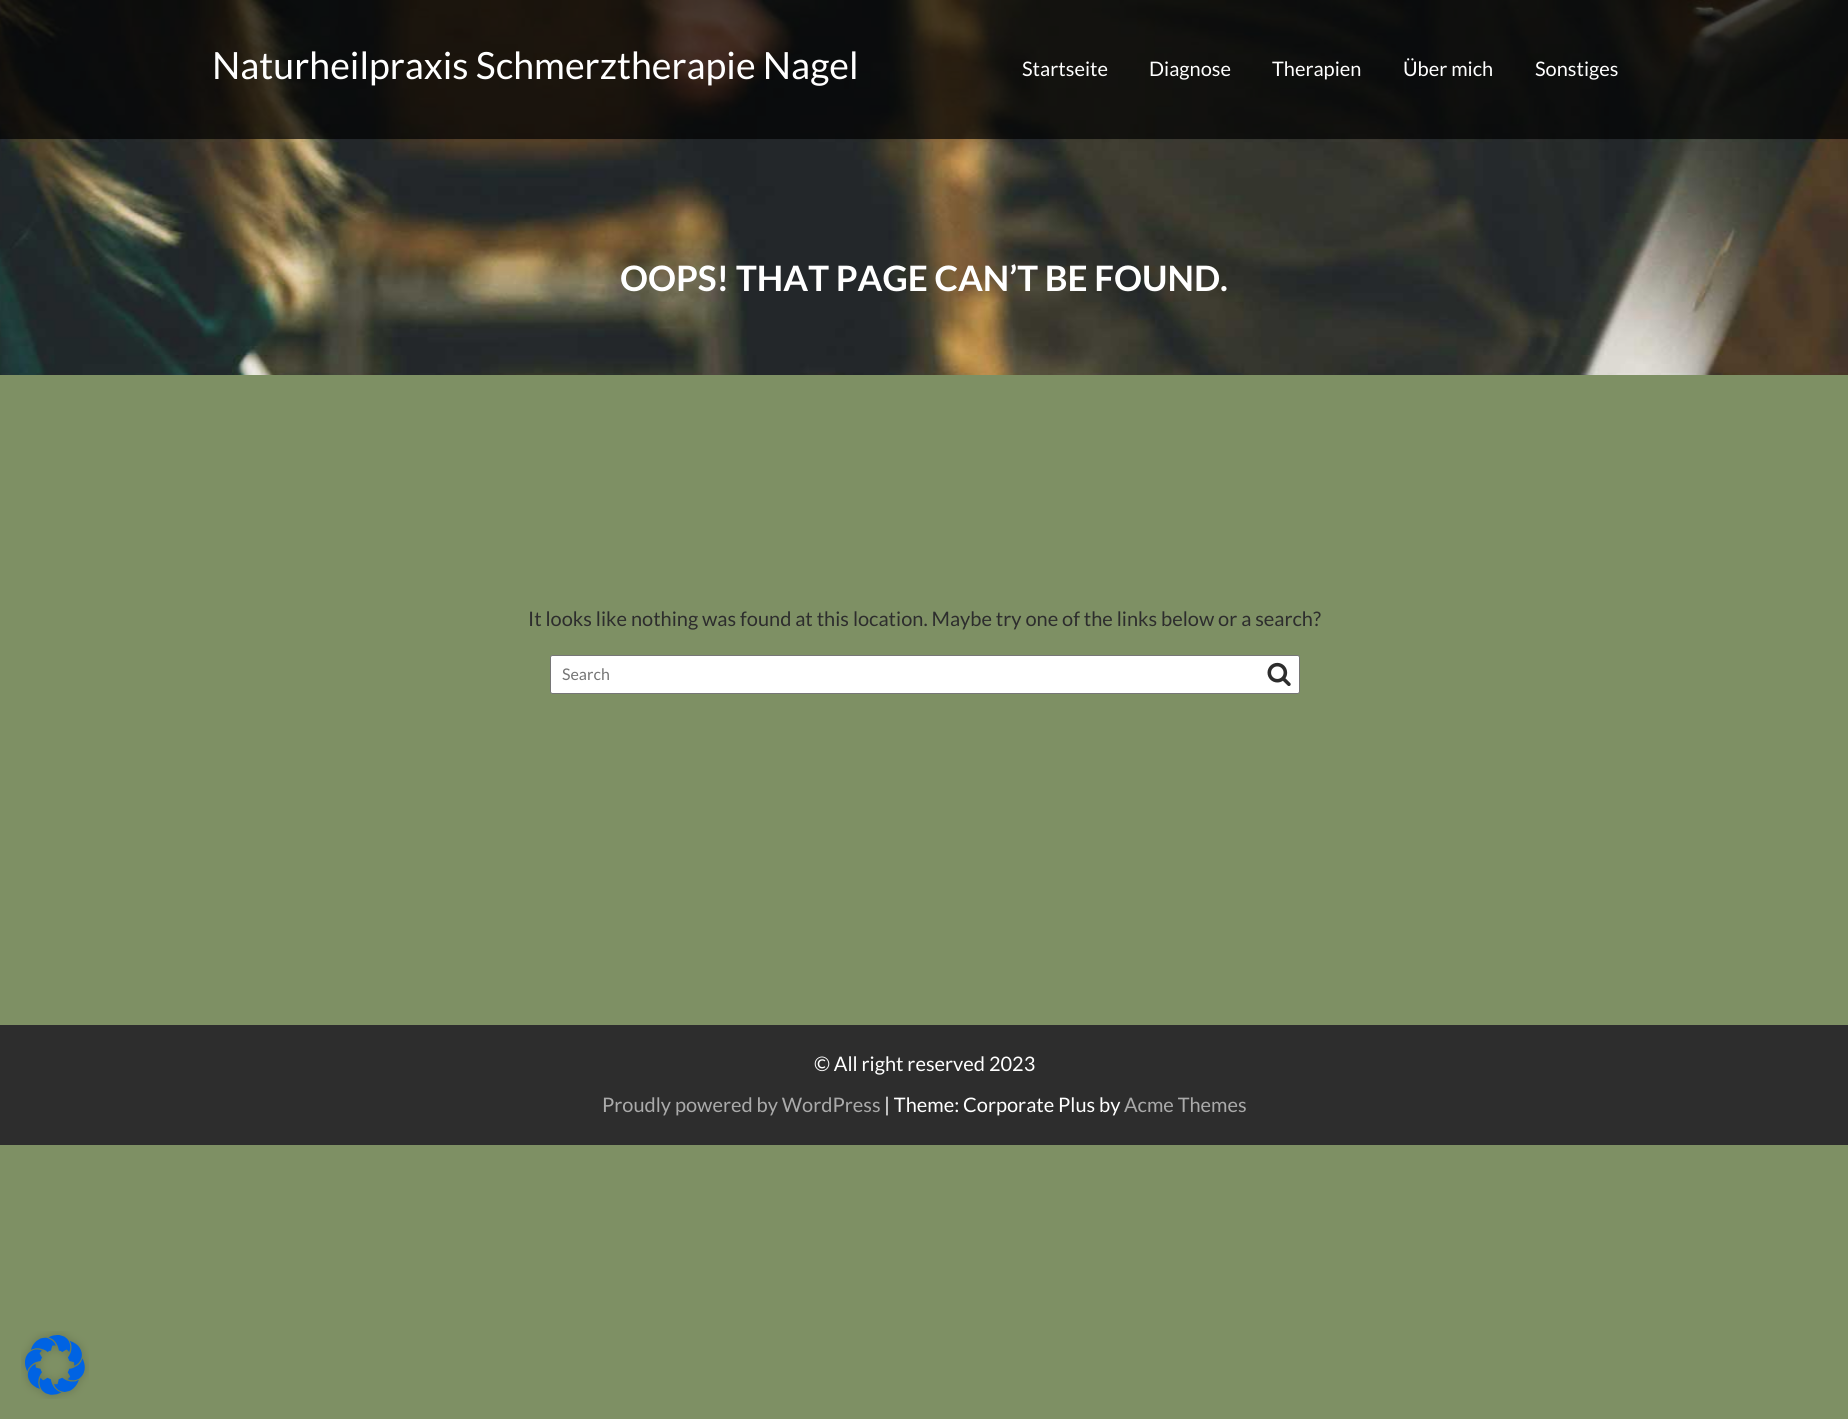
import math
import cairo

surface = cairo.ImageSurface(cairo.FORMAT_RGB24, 1848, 1419)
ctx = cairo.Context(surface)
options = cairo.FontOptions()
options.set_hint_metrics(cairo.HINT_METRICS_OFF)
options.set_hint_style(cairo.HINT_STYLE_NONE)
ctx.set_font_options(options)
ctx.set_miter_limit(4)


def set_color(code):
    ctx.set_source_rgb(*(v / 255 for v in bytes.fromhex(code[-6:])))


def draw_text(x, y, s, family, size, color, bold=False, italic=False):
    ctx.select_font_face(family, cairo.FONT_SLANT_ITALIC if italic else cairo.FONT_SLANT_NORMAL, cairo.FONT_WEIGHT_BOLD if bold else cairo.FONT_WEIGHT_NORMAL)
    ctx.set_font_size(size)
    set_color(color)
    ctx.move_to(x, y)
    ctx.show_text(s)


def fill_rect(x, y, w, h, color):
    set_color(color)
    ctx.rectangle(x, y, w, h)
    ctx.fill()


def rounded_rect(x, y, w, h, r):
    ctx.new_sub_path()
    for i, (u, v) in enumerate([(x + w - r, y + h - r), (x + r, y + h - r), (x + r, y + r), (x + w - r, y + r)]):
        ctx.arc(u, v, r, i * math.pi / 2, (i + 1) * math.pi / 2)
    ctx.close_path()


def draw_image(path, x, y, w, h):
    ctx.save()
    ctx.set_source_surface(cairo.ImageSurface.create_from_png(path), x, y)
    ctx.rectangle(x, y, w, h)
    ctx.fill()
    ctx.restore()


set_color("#7e9064")
ctx.paint()
draw_image("assets/img1.png", 0, 0, 1848, 375)
ctx.set_source_rgba(0, 0, 0, 0.7)
ctx.rectangle(0, 0, 1848, 139)
ctx.fill()
draw_text(212, 79, "Naturheilpraxis Schmerztherapie Nagel", "Lato", 37.5, "#ffffff")
draw_text(1022, 76, "Startseite", "Lato", 20, "#ffffff")
draw_text(1149, 76, "Diagnose", "Lato", 20, "#ffffff")
draw_text(1272, 76, "Therapien", "Lato", 20, "#ffffff")
draw_text(1403, 76, "Über mich", "Lato", 20, "#ffffff")
draw_text(1535, 76, "Sonstiges", "Lato", 20, "#ffffff")
draw_text(620, 291, "OOPS! THAT PAGE CAN’T BE FOUND.", "Lato", 35, "#ffffff", bold=True)
draw_text(528, 626, "It looks like nothing was found at this location. Maybe try one of the links below or a search?", "Lato", 20, "#2d2d2d")
set_color("#ffffff")
rounded_rect(550.5, 655.5, 749, 38, 2)
ctx.fill_preserve()
set_color("#767676")
ctx.set_line_width(1)
ctx.stroke()
draw_text(562, 680, "Search", "Lato", 16, "#757575")
draw_image("assets/img2.png", 1267, 662, 24, 24)
fill_rect(0, 1025, 1848, 120, "#2d2d2d")
draw_text(814, 1071, "© All right reserved 2023", "Lato", 20, "#ffffff")
draw_text(602, 1112, "Proudly powered by WordPress", "Lato", 20, "#aaaaaa")
draw_text(884, 1112, "| Theme: Corporate Plus by", "Lato", 20, "#ffffff")
draw_text(1124, 1112, "Acme Themes", "Lato", 20, "#aaaaaa")
draw_image("assets/img3.png", 21, 1331, 68, 68)
surface.write_to_png("output.png")
